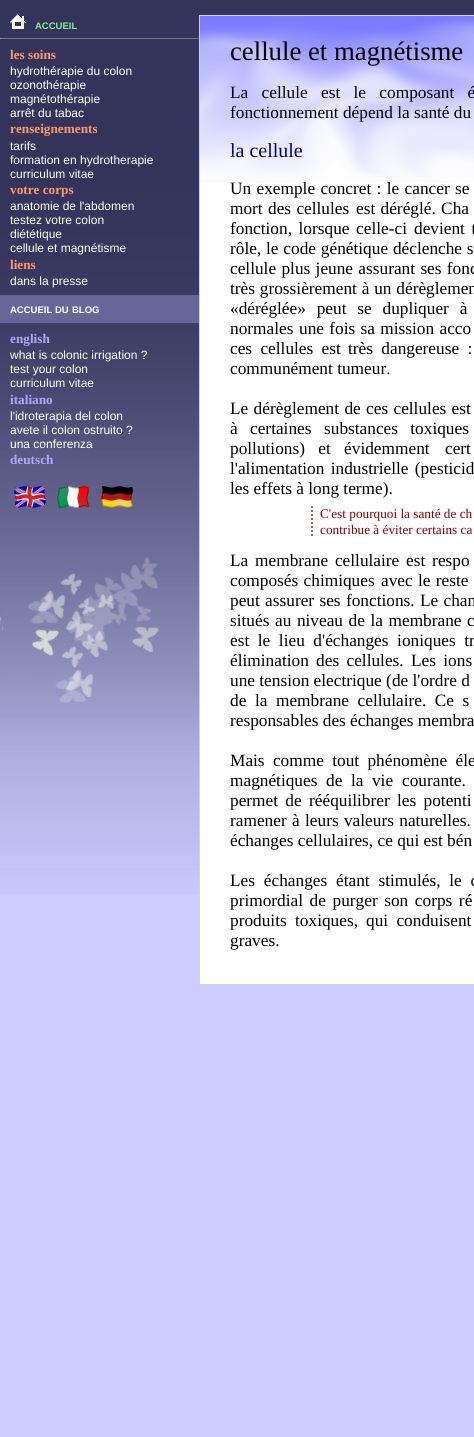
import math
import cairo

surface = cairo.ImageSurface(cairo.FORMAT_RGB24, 474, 1437)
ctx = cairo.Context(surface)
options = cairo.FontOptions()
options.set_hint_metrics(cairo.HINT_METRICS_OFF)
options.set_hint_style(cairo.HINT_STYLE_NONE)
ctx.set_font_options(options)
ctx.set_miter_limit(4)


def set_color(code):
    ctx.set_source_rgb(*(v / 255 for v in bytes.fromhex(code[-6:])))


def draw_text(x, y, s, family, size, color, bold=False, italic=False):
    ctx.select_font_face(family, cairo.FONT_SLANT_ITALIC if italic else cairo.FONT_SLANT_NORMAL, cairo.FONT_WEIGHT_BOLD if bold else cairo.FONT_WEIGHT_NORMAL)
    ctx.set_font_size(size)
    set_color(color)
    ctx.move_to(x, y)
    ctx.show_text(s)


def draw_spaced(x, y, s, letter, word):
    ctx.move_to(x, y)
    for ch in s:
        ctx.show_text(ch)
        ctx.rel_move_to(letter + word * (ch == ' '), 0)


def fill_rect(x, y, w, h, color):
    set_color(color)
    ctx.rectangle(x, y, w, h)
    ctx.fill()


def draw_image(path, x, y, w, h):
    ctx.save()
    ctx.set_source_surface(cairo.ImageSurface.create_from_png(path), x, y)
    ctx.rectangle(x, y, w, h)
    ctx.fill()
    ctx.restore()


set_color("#ccccff")
ctx.paint()
draw_image("assets/img1.png", 0, 0, 474, 894)
draw_image("assets/img2.png", 10, 14, 16, 15)
draw_text(35, 29, "ACCUEIL", "Liberation Sans", 9.5, "#90ee90", bold=True)
fill_rect(0, 38, 200, 1, "#777788")
fill_rect(0, 38, 1, 1, "#9f9f9f")
draw_text(10, 59, "les soins", "Liberation Serif", 13.25, "#ff9966", bold=True)
draw_text(10, 75, "hydrothérapie du colon", "Liberation Sans", 12, "#ffffff")
draw_text(10, 89, "ozonothérapie", "Liberation Sans", 12, "#ffffff")
draw_text(10, 103, "magnétothérapie", "Liberation Sans", 12, "#ffffff")
draw_text(10, 117, "arrêt du tabac", "Liberation Sans", 12, "#ffffff")
draw_text(10, 133, "renseignements", "Liberation Serif", 13.25, "#ff9966", bold=True)
draw_text(10, 150, "tarifs", "Liberation Sans", 12, "#ffffff")
draw_text(10, 164, "formation en hydrotherapie", "Liberation Sans", 12, "#ffffff")
draw_text(10, 178, "curriculum vitae", "Liberation Sans", 12, "#ffffff")
draw_text(10, 194, "votre corps", "Liberation Serif", 13.25, "#ff9966", bold=True)
draw_text(10, 210, "anatomie de l'abdomen", "Liberation Sans", 12, "#ffffff")
draw_text(10, 224, "testez votre colon", "Liberation Sans", 12, "#ffffff")
draw_text(10, 238, "diététique", "Liberation Sans", 12, "#ffffff")
draw_text(10, 252, "cellule et magnétisme", "Liberation Sans", 12, "#ffffff")
draw_text(10, 269, "liens", "Liberation Serif", 13.25, "#ff9966", bold=True)
draw_text(10, 285, "dans la presse", "Liberation Sans", 12, "#ffffff")
fill_rect(0, 295, 199, 28, "#666699")
draw_text(10, 313, "ACCUEIL", "Liberation Sans", 9.5, "#ffffff", bold=True)
draw_text(55, 313, "DU", "Liberation Sans", 9.5, "#ffffff", bold=True)
draw_text(72, 313, "BLOG", "Liberation Sans", 9.5, "#ffffff", bold=True)
draw_text(10, 343, "english", "Liberation Serif", 13.25, "#aaaaff", bold=True)
draw_text(10, 359, "what is colonic irrigation ?", "Liberation Sans", 12, "#ffffff")
draw_text(10, 373, "test your colon", "Liberation Sans", 12, "#ffffff")
draw_text(10, 387, "curriculum vitae", "Liberation Sans", 12, "#ffffff")
draw_text(10, 404, "italiano", "Liberation Serif", 13.25, "#aaaaff", bold=True)
draw_text(10, 420, "l'idroterapia del colon", "Liberation Sans", 12, "#ffffff")
draw_text(10, 434, "avete il colon ostruito ?", "Liberation Sans", 12, "#ffffff")
draw_text(10, 448, "una conferenza", "Liberation Sans", 12, "#ffffff")
draw_text(10, 464, "deutsch", "Liberation Serif", 13.25, "#aaaaff", bold=True)
draw_image("assets/img3.png", 14, 486, 32, 22)
draw_image("assets/img4.png", 57, 486, 32, 22)
draw_image("assets/img5.png", 101, 486, 32, 22)
fill_rect(200, 183, 274, 801, "#ffffff")
draw_image("assets/img6.png", 200, 16, 274, 167)
ctx.rectangle(199.5, 15.5, 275, 969)
set_color("#ccccff")
ctx.set_line_width(1)
ctx.stroke()
draw_text(230, 60, "cellule et magnétisme", "Liberation Serif", 26.75, "#000000")
ctx.set_font_size(17.3)
draw_spaced(230, 98, "La cellule est le composant é", 0, 9)
draw_text(230, 118, "fonctionnement dépend la santé du", "Liberation Serif", 17.3, "#000000")
draw_text(230, 157, "la cellule", "Liberation Serif", 20, "#000080")
ctx.set_font_size(17.3)
set_color("#000000")
draw_spaced(230, 194, "Un exemple concret : le cancer se", 0, 1)
draw_spaced(230, 214, "mort des cellules", 0, 1)
draw_spaced(356, 214, "est déréglé. Cha", 0, 1)
draw_spaced(230, 234, "fonction, lorsque celle-ci", 0, 2.25)
draw_spaced(414, 234, "devient t", 0, 2.25)
draw_spaced(230, 254, "rôle, le code génétique déclenche s", 0, 0.5)
draw_spaced(230, 274, "cellule plus jeune assurant ses fonc", 0, 1)
draw_spaced(230, 294, "très grossièrement à un dérèglemen", 0, 0.5)
draw_spaced(230, 314, "«déréglée» peut se dupliquer à", 0, 6.5)
draw_text(230, 334, "normales", "Liberation Serif", 17.3, "#000000")
draw_spaced(299, 334, "une fois sa mission acco", 0, 1)
draw_spaced(230, 354, "ces cellules est", 0, 4)
draw_spaced(348, 354, "très dangereuse :", 0, 4)
draw_text(230, 374, "communément tumeur.", "Liberation Serif", 17.3, "#000000")
draw_spaced(230, 414, "Le dérèglement de ces cellules est", 0, 1)
draw_spaced(230, 434, "à certaines", 0, 8)
draw_spaced(324, 434, "substances toxiques", 0, 8)
draw_spaced(230, 454, "pollutions) et évidemment", 0, 9)
draw_spaced(445, 454, "cert", 0, 9)
draw_spaced(230, 474, "l'alimentation industrielle (pesticid", 0, 2)
draw_text(230, 494, "les effets à long terme).", "Liberation Serif", 17.3, "#000000")
ctx.new_path()
ctx.move_to(312, 506)
ctx.line_to(312, 538)
set_color("#996666")
ctx.set_line_width(2)
ctx.set_dash([2, 2])
ctx.stroke()
draw_text(320, 518, "C'est pourquoi la santé de ch", "Liberation Serif", 13.25, "#800000")
draw_text(320, 534, "contribue à éviter certains ca", "Liberation Serif", 13.25, "#800000")
ctx.set_font_size(17.3)
set_color("#000000")
draw_spaced(230, 566, "La membrane cellulaire est respo", 0, 2.5)
draw_spaced(230, 586, "composés chimiques", 0, 1)
draw_spaced(381, 586, "avec le reste", 0, 1)
draw_spaced(230, 606, "peut assurer ses fonctions. Le cham", 0, 1)
draw_spaced(230, 626, "situés au niveau de la membrane c", 0, 1.25)
draw_spaced(230, 646, "est le lieu d'échanges ioniques tr", 0, 4.25)
draw_spaced(230, 666, "élimination des cellules. Les ions", 0, 3)
draw_text(230, 686, "une tension electrique (de l'ordre d", "Liberation Serif", 17.3, "#000000")
draw_spaced(230, 706, "de la membrane cellulaire. Ce s", 0, 4.25)
draw_text(230, 726, "responsables des échanges membra", "Liberation Serif", 17.3, "#000000")
draw_spaced(230, 766, "Mais comme tout phénomène éle", 0, 4)
draw_spaced(230, 786, "magnétiques de la vie", 0, 4.25)
draw_spaced(402, 786, "courante.", 0, 4.25)
draw_spaced(230, 806, "permet de rééquilibrer les potenti", 0, 3)
draw_spaced(230, 826, "ramener à leurs valeurs naturelles.", 0, 1)
draw_text(230, 846, "échanges cellulaires, ce qui est bén", "Liberation Serif", 17.3, "#000000")
draw_spaced(230, 886, "Les échanges étant stimulés, le c", 0, 4.5)
draw_spaced(230, 906, "primordial de purger son corps ré", 0, 2.25)
draw_spaced(230, 926, "produits toxiques,", 0, 4)
draw_spaced(366, 926, "qui conduisent", 0, 4)
draw_text(230, 946, "graves.", "Liberation Serif", 17.3, "#000000")
surface.write_to_png("output.png")
